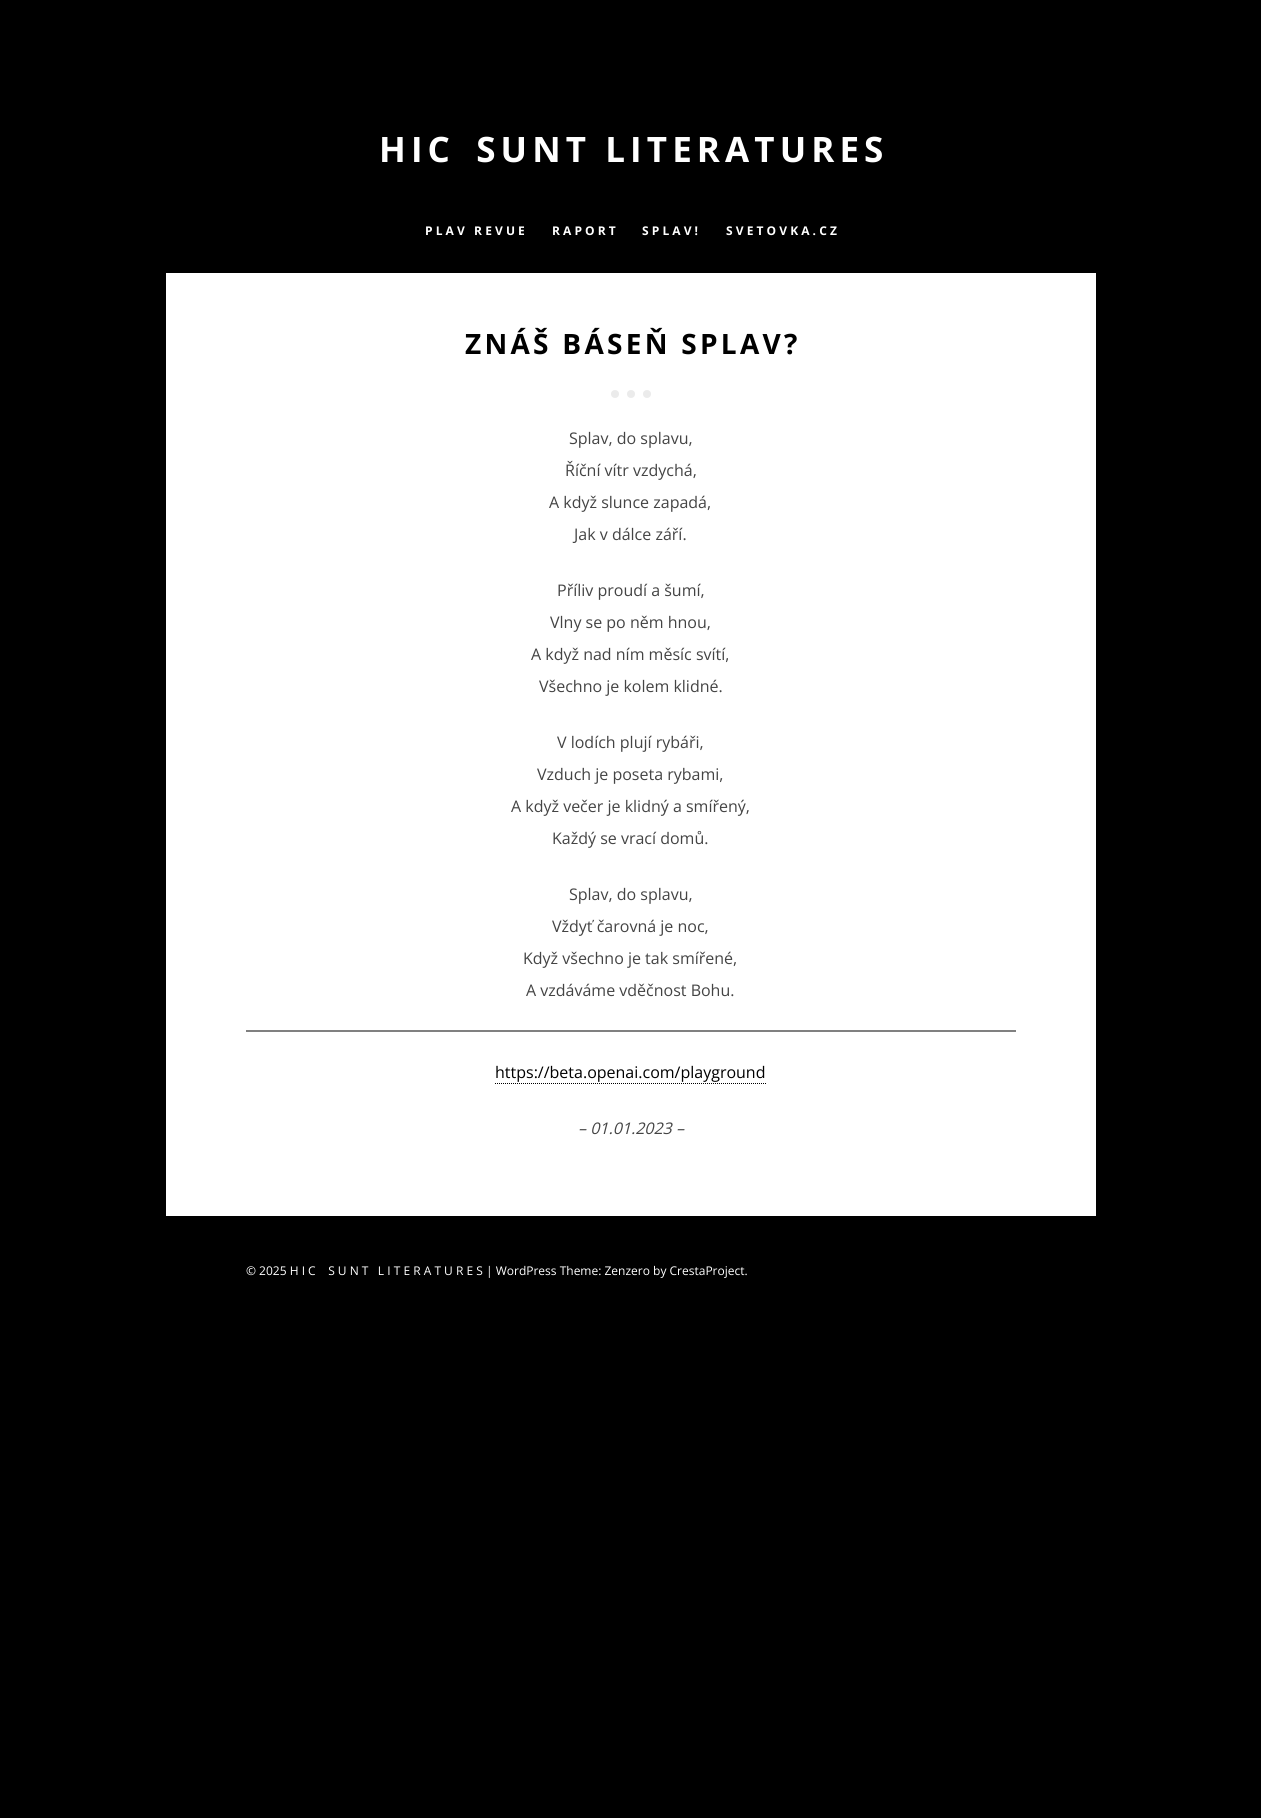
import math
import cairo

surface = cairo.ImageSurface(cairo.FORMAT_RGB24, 1261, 1818)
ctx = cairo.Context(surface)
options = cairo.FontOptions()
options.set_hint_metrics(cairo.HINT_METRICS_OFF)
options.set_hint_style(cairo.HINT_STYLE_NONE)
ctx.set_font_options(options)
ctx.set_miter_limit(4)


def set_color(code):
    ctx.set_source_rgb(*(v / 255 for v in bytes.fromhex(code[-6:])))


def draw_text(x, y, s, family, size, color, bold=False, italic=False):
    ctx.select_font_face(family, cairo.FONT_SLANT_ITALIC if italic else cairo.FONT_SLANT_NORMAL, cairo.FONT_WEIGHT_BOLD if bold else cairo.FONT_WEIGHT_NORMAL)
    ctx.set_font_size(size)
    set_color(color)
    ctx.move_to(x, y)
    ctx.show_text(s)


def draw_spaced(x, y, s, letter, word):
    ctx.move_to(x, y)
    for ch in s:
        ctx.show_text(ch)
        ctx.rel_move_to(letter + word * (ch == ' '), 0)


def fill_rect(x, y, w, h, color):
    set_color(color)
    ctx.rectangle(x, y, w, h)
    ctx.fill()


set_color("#000000")
ctx.paint()
fill_rect(166, 273, 930, 943, "#ffffff")
ctx.select_font_face("Open Sans", cairo.FONT_SLANT_NORMAL, cairo.FONT_WEIGHT_BOLD)
ctx.set_font_size(35)
draw_spaced(379, 162, "H I C    S U N T   L I T E R A T U R E S", -2, 0)
draw_text(425, 235, "P L A V   R E V U E", "Open Sans", 12, "#ffffff", bold=True)
draw_text(552, 235, "R A P O R T", "Open Sans", 12, "#ffffff", bold=True)
draw_text(642, 235, "S P L A V !", "Open Sans", 12, "#ffffff", bold=True)
draw_text(726, 235, "S V E T O V K A . C Z", "Open Sans", 12, "#ffffff", bold=True)
ctx.set_font_size(28)
set_color("#000000")
draw_spaced(465, 354, "Z N Á Š   B Á S E Ň   S P L A V ?", -2, 0)
set_color("#ebebeb")
ctx.new_path()
ctx.arc(615, 394, 4, 0, 2 * math.pi)
ctx.fill()
ctx.arc(647, 394, 4, 0, 2 * math.pi)
ctx.fill()
ctx.arc(631, 394, 4, 0, 2 * math.pi)
ctx.fill()
draw_text(569, 444, "Splav, do splavu,", "Open Sans", 16, "#444444")
draw_text(565, 476, "Říční vítr vzdychá,", "Open Sans", 16, "#444444")
draw_text(549, 508, "A když slunce zapadá,", "Open Sans", 16, "#444444")
draw_text(574, 540, "Jak v dálce září.", "Open Sans", 16, "#444444")
draw_text(557, 596, "Příliv proudí a šumí,", "Open Sans", 16, "#444444")
draw_text(550, 628, "Vlny se po něm hnou,", "Open Sans", 16, "#444444")
draw_text(531, 660, "A když nad ním měsíc svítí,", "Open Sans", 16, "#444444")
draw_text(539, 692, "Všechno je kolem klidné.", "Open Sans", 16, "#444444")
draw_text(557, 748, "V lodích plují rybáři,", "Open Sans", 16, "#444444")
draw_text(537, 780, "Vzduch je poseta rybami,", "Open Sans", 16, "#444444")
draw_text(511, 812, "A když večer je klidný a smířený,", "Open Sans", 16, "#444444")
draw_text(552, 844, "Každý se vrací domů.", "Open Sans", 16, "#444444")
draw_text(569, 900, "Splav, do splavu,", "Open Sans", 16, "#444444")
draw_text(552, 932, "Vždyť čarovná je noc,", "Open Sans", 16, "#444444")
draw_text(523, 964, "Když všechno je tak smířené,", "Open Sans", 16, "#444444")
draw_text(526, 996, "A vzdáváme vděčnost Bohu.", "Open Sans", 16, "#444444")
fill_rect(246, 1030, 770, 2, "#808080")
draw_text(495, 1078, "https://beta.openai.com/playground", "Open Sans", 16, "#000000")
ctx.new_path()
ctx.move_to(495, 1083.5)
ctx.line_to(766, 1083.5)
ctx.set_line_width(1)
ctx.set_dash([1, 1])
ctx.stroke()
draw_text(578, 1134, "– 01.01.2023 –", "Open Sans", 16, "#444444", italic=True)
draw_text(246, 1275, "© 2025 H I C    S U N T   L I T E R A T U R E S | WordPress Theme: Zenzero by CrestaProject.", "Open Sans", 12, "#ffffff")
surface.write_to_png("output.png")
